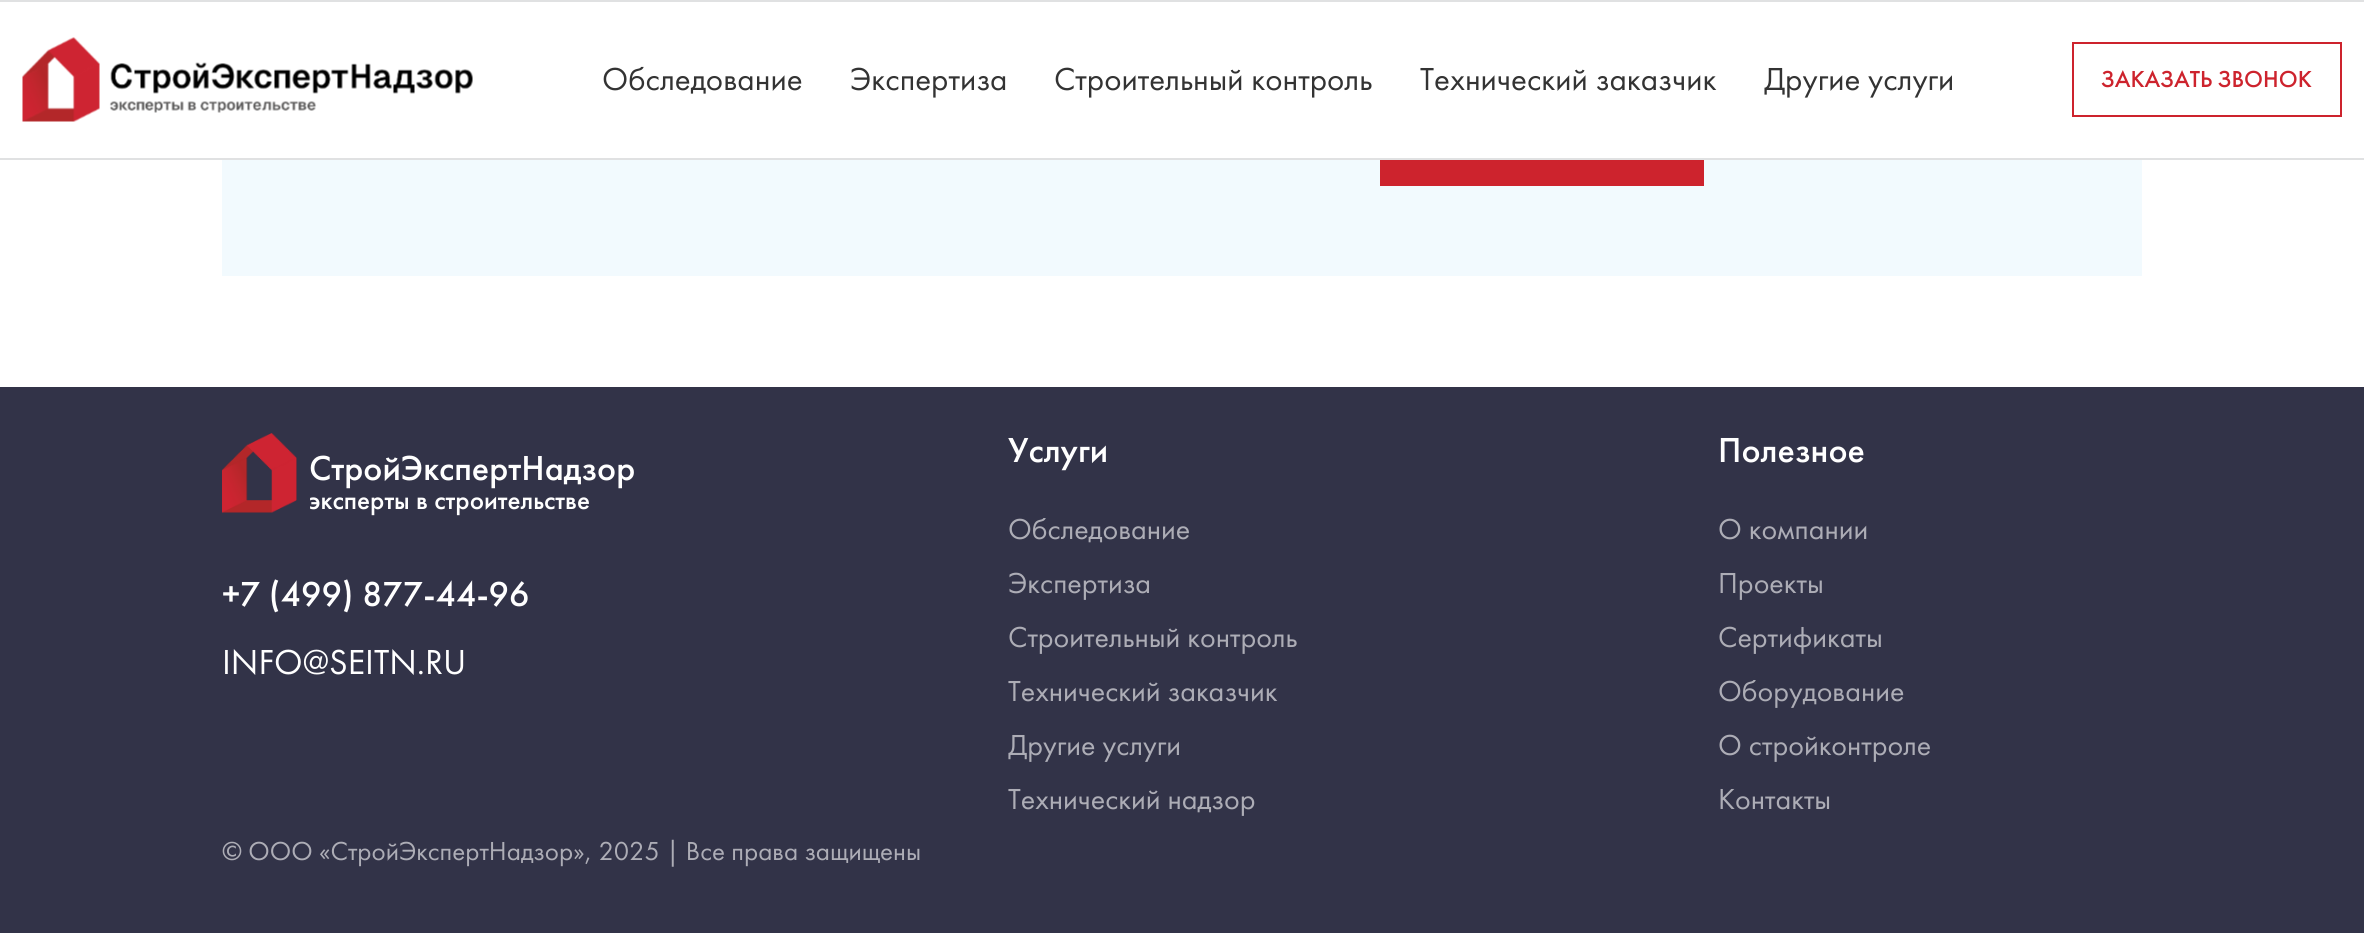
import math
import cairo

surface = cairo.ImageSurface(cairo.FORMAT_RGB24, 2364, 933)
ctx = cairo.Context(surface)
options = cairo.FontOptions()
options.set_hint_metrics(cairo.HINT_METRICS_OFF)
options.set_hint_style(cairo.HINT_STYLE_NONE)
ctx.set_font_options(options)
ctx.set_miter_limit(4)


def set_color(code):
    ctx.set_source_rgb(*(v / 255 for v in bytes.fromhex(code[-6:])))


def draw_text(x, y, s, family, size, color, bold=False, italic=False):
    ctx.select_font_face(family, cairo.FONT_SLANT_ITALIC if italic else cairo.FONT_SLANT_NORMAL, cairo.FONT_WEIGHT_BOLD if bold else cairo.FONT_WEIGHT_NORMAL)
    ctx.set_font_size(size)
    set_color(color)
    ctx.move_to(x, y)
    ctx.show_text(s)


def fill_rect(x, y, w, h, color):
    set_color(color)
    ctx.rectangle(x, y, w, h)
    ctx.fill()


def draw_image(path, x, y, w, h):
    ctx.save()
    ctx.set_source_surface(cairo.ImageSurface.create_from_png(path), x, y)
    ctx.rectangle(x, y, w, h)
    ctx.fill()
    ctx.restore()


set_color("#ffffff")
ctx.paint()
fill_rect(0, 0, 2364, 2, "#e0e1e2")
fill_rect(0, 158, 2364, 2, "#e0e1e2")
draw_image("assets/img1.png", 22, 37, 451, 85)
draw_text(602, 90, "Обследование", "Futura PT", 33, "#333333")
draw_text(850, 90, "Экспертиза", "Futura PT", 33, "#333333")
draw_text(1054, 90, "Строительный контроль", "Futura PT", 33, "#333333")
draw_text(1420, 90, "Технический заказчик", "Futura PT", 33, "#333333")
draw_text(1764, 90, "Другие услуги", "Futura PT", 33, "#333333")
ctx.rectangle(2073, 43, 268, 73)
set_color("#cd232d")
ctx.stroke()
draw_text(2101, 87, "ЗАКАЗАТЬ ЗВОНОК", "Futura PT Medium", 24, "#cd232d")
fill_rect(222, 160, 1920, 116, "#f2fafe")
fill_rect(1380, 160, 324, 26, "#cd232d")
fill_rect(0, 387, 2364, 546, "#323348")
draw_image("assets/img2.png", 222, 433, 75, 80)
draw_text(309, 480, "СтройЭкспертНадзор", "Futura PT Medium", 36, "#ffffff")
draw_text(309, 509, "эксперты в строительстве", "Futura PT Medium", 27, "#ffffff")
draw_text(222, 606, "+7 (499) 877-44-96", "Futura PT Medium", 36, "#ffffff")
draw_text(222, 674, "INFO@SEITN.RU", "Futura PT", 36, "#ffffff")
draw_text(1008, 462, "Услуги", "Futura PT Medium", 36, "#ffffff")
draw_text(1008, 539, "Обследование", "Futura PT", 30, "#adadb6")
draw_text(1008, 593, "Экспертиза", "Futura PT", 30, "#adadb6")
draw_text(1008, 647, "Строительный контроль", "Futura PT", 30, "#adadb6")
draw_text(1008, 701, "Технический заказчик", "Futura PT", 30, "#adadb6")
draw_text(1008, 755, "Другие услуги", "Futura PT", 30, "#adadb6")
draw_text(1008, 809, "Технический надзор", "Futura PT", 30, "#adadb6")
draw_text(1718, 462, "Полезное", "Futura PT Medium", 36, "#ffffff")
draw_text(1718, 539, "О компании", "Futura PT", 30, "#adadb6")
draw_text(1718, 593, "Проекты", "Futura PT", 30, "#adadb6")
draw_text(1718, 647, "Сертификаты", "Futura PT", 30, "#adadb6")
draw_text(1718, 701, "Оборудование", "Futura PT", 30, "#adadb6")
draw_text(1718, 755, "О стройконтроле", "Futura PT", 30, "#adadb6")
draw_text(1718, 809, "Контакты", "Futura PT", 30, "#adadb6")
draw_text(222, 860, "© ООО «СтройЭкспертНадзор», 2025 | Все права защищены", "Futura PT", 27, "#adadb6")
surface.write_to_png("output.png")
